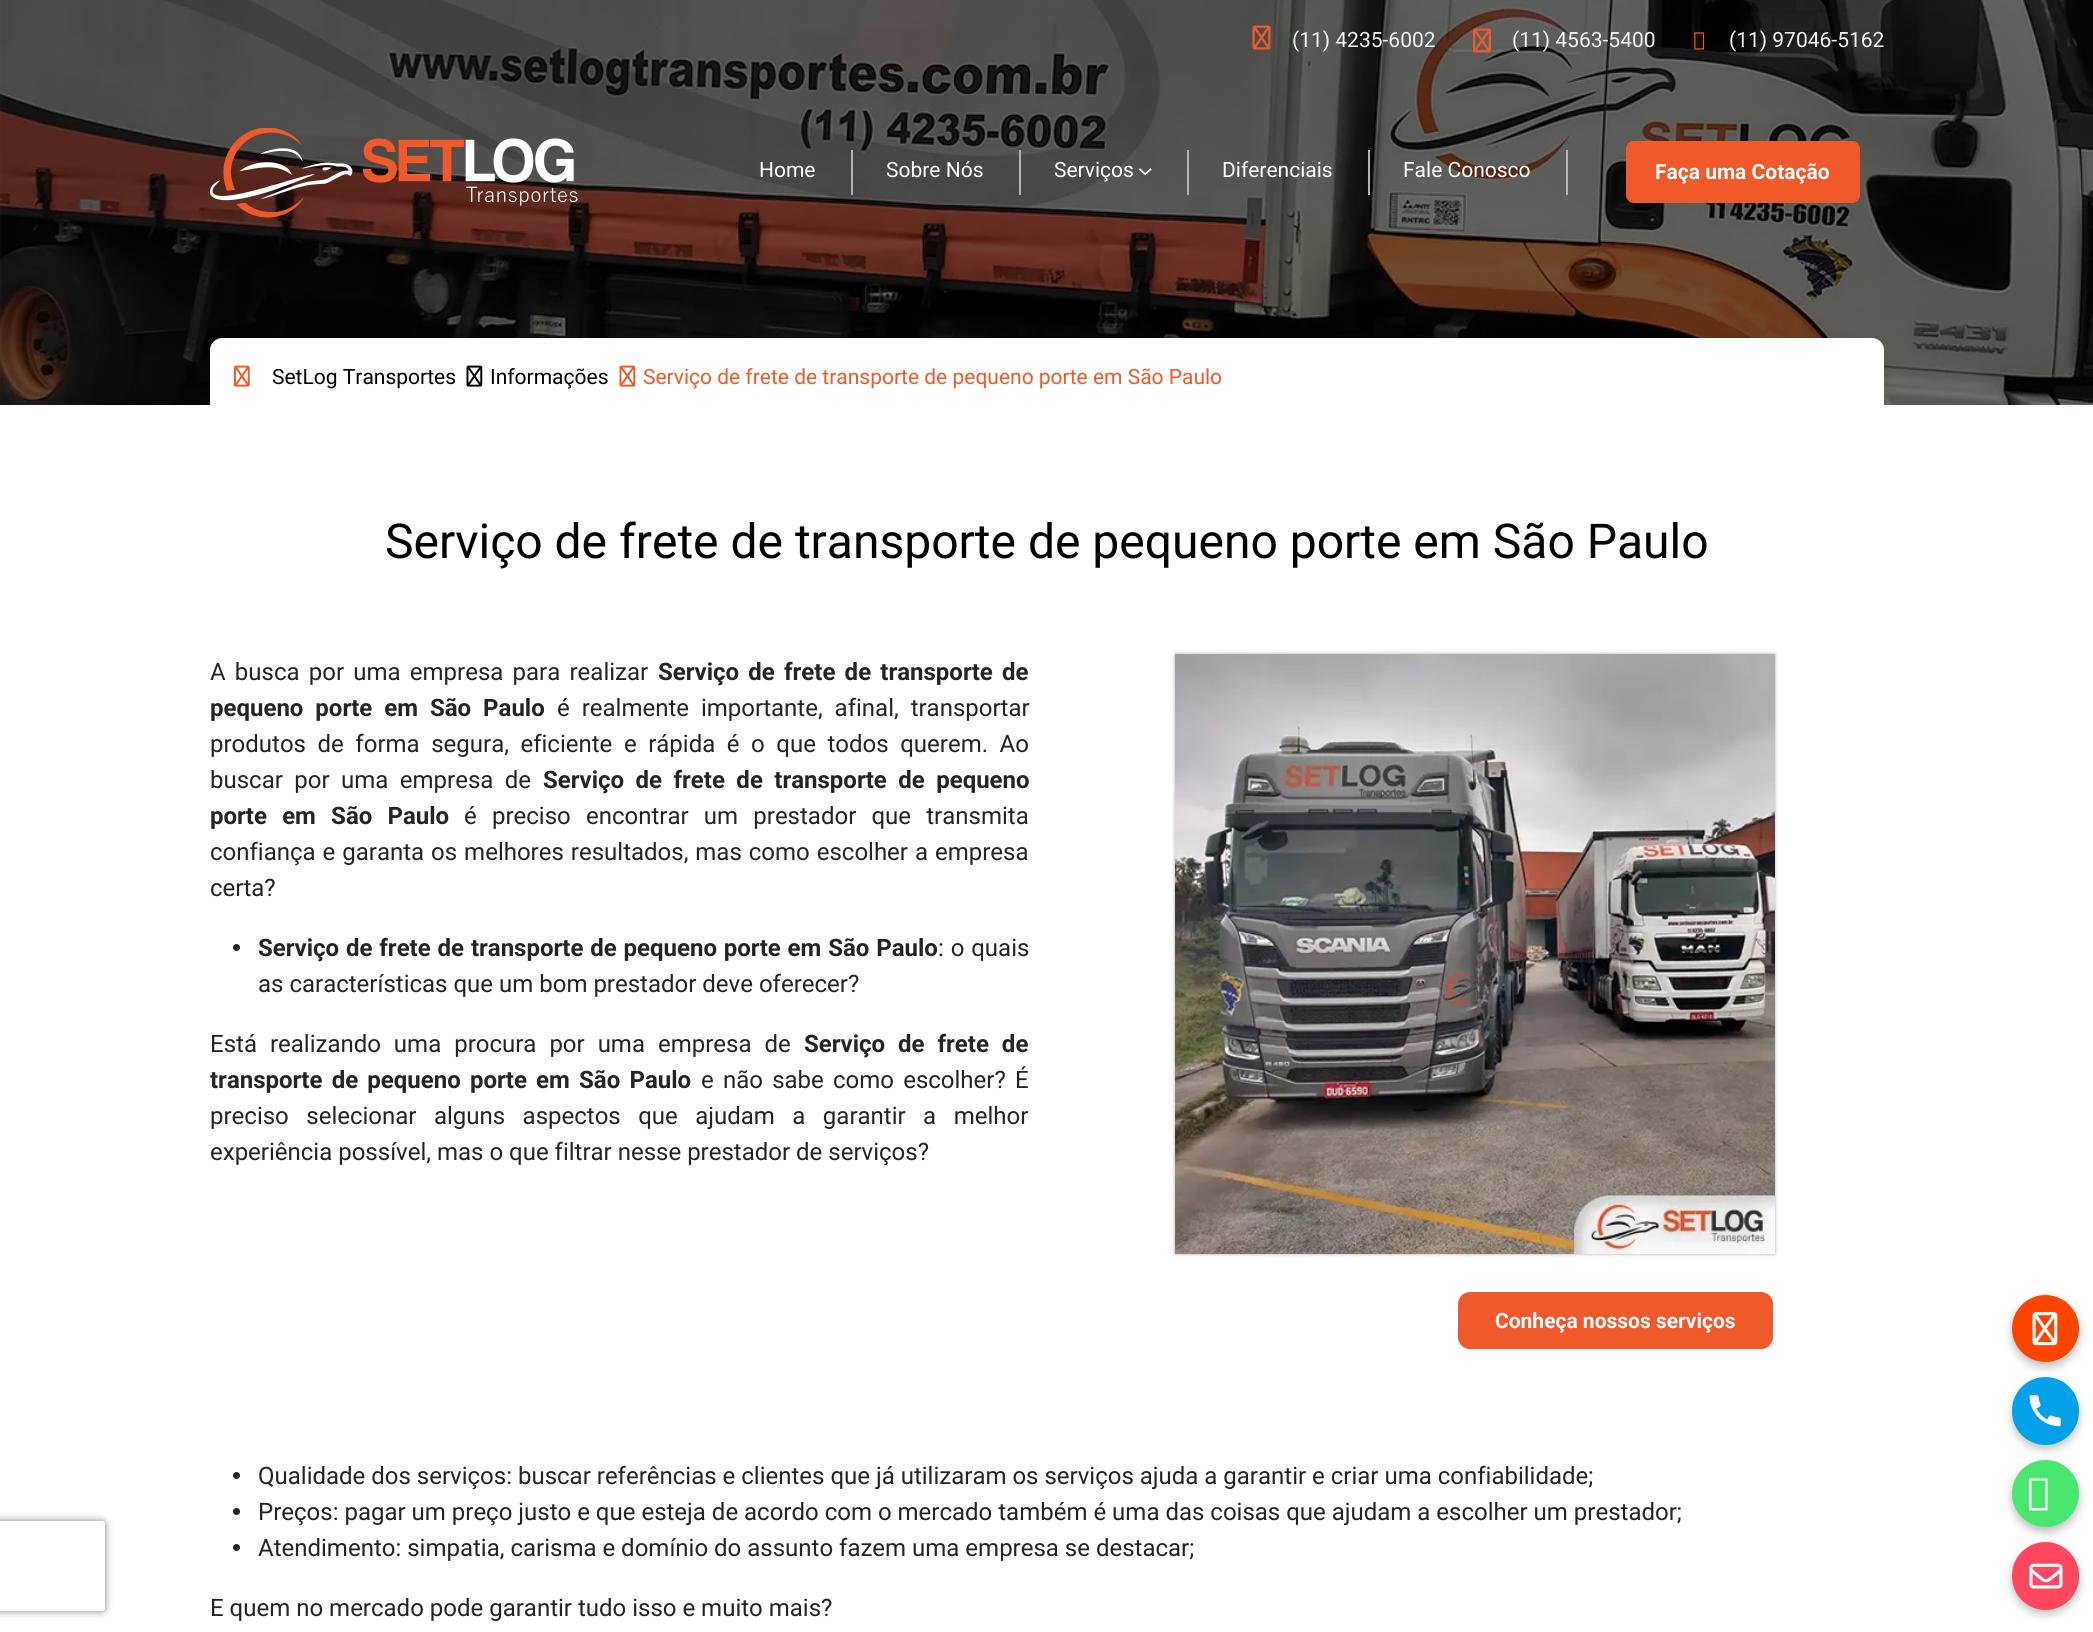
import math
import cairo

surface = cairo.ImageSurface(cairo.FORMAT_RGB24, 2093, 1632)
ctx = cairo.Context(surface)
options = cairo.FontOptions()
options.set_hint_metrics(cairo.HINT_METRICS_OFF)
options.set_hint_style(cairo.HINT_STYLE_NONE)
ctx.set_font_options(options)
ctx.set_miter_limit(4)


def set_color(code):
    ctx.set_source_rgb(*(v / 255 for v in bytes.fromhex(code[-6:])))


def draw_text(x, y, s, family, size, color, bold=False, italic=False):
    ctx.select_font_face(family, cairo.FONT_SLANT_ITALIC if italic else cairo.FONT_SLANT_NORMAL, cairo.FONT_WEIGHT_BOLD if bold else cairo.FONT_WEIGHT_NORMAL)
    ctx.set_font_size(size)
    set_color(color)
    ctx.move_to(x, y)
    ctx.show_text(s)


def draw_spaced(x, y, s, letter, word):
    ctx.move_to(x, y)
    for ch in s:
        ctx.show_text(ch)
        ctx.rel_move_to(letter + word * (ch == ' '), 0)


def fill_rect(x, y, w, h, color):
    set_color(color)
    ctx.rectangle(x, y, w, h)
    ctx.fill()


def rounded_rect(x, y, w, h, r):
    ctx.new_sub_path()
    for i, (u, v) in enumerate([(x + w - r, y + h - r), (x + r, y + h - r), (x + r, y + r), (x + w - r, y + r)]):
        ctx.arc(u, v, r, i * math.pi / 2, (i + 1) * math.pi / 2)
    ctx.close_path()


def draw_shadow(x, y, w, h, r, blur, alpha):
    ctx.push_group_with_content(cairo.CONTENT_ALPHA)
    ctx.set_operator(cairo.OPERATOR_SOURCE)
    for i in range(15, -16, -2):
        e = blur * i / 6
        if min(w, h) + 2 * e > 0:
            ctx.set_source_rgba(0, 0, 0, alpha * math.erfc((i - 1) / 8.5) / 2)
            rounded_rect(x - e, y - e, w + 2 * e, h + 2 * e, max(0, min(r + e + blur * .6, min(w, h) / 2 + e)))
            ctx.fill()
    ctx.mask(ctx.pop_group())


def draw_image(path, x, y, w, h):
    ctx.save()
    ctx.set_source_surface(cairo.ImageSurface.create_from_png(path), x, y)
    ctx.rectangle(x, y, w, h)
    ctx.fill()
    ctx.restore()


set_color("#ffffff")
ctx.paint()
draw_image("assets/img1.png", 0, 0, 2093, 405)
draw_image("assets/img2.png", 1252, 25, 19, 25)
draw_text(1292, 47, "(11) 4235-6002", "Roboto", 21, "#f2f5f7")
draw_image("assets/img3.png", 1473, 28, 18, 25)
draw_text(1512, 47, "(11) 4563-5400", "Roboto", 21, "#f2f5f7")
draw_image("assets/img4.png", 1694, 32, 11, 18)
draw_text(1729, 47, "(11) 97046-5162", "Roboto", 21, "#f2f5f7")
draw_image("assets/img5.png", 210, 128, 368, 90)
draw_text(759, 177, "Home", "Roboto", 21, "#ffffff")
fill_rect(851, 150, 2, 45, "#b2b2b2")
draw_text(886, 177, "Sobre Nós", "Roboto", 21, "#ffffff")
fill_rect(1019, 150, 2, 45, "#b2b2b2")
draw_text(1054, 177, "Serviços", "Roboto", 21, "#ffffff")
draw_image("assets/img6.png", 1139, 168, 13, 8)
fill_rect(1187, 150, 2, 45, "#b2b2b2")
draw_text(1222, 177, "Diferenciais", "Roboto", 21, "#ffffff")
fill_rect(1368, 150, 2, 45, "#b2b2b2")
draw_text(1403, 177, "Fale Conosco", "Roboto", 21, "#ffffff")
fill_rect(1566, 150, 2, 45, "#b2b2b2")
set_color("#f0592a")
rounded_rect(1626, 141, 234, 62, 8)
ctx.fill()
draw_text(1655, 179, "Faça uma Cotação", "Roboto", 21, "#ffffff", bold=True)
ctx.new_path()
ctx.move_to(222, 338)
ctx.line_to(1872, 338)
ctx.curve_to(1878.5, 338, 1884, 343.5, 1884, 350)
ctx.line_to(1884, 405)
ctx.line_to(210, 405)
ctx.line_to(210, 350)
ctx.curve_to(210, 343.5, 215.5, 338, 222, 338)
ctx.close_path()
ctx.fill()
draw_image("assets/img7.png", 234, 365, 16, 22)
draw_text(272, 384, "SetLog Transportes", "Roboto", 21, "#000000")
draw_image("assets/img8.png", 466, 365, 17, 22)
draw_text(490, 384, "Informações", "Roboto", 21, "#000000")
draw_image("assets/img9.png", 619, 365, 17, 22)
draw_text(643, 384, "Serviço de frete de transporte de pequeno porte em São Paulo", "Roboto", 21, "#f0592a")
ctx.save()
ctx.set_fill_rule(cairo.FILL_RULE_EVEN_ODD)
ctx.new_path()
ctx.move_to(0, 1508)
ctx.line_to(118, 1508)
ctx.line_to(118, 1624)
ctx.line_to(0, 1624)
ctx.close_path()
ctx.move_to(-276, 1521)
ctx.line_to(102, 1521)
ctx.curve_to(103.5, 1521, 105, 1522.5, 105, 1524)
ctx.line_to(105, 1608)
ctx.curve_to(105, 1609.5, 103.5, 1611, 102, 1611)
ctx.line_to(-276, 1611)
ctx.curve_to(-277.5, 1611, -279, 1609.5, -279, 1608)
ctx.line_to(-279, 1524)
ctx.curve_to(-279, 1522.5, -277.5, 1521, -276, 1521)
ctx.close_path()
ctx.clip()
set_color("#808080")
draw_shadow(-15, 1521, 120, 90, 3, 4, 1)
ctx.restore()
draw_text(385, 558, "Serviço de frete de transporte de pequeno porte em São Paulo", "Roboto", 48, "#000000")
ctx.set_font_size(24)
set_color("#212529")
draw_spaced(210, 680, "A busca por uma empresa para realizar", 0, 3.25)
ctx.select_font_face("Roboto", cairo.FONT_SLANT_NORMAL, cairo.FONT_WEIGHT_BOLD)
draw_spaced(658, 680, "Serviço de frete de transporte de", 0, 3.25)
draw_spaced(210, 716, "pequeno porte em São Paulo", 0, 6)
ctx.select_font_face("Roboto")
draw_spaced(557, 716, "é realmente importante, afinal, transportar", 0, 6)
draw_spaced(210, 752, "produtos de forma segura, eficiente e rápida é o que todos querem. Ao", 0, 5.6)
draw_spaced(210, 788, "buscar por uma empresa de", 0, 5.5)
ctx.select_font_face("Roboto", cairo.FONT_SLANT_NORMAL, cairo.FONT_WEIGHT_BOLD)
draw_spaced(543, 788, "Serviço de frete de transporte de pequeno", 0, 5.5)
draw_spaced(210, 824, "porte em São Paulo", 0, 9.25)
ctx.select_font_face("Roboto")
draw_spaced(464, 824, "é preciso encontrar um prestador que transmita", 0, 9.25)
draw_spaced(210, 860, "confiança e garanta os melhores resultados, mas como escolher a empresa", 0, 1)
draw_text(210, 896, "certa?", "Roboto", 24, "#212529")
ctx.new_path()
ctx.arc(236.5, 947.5, 3.5, 0, 2 * math.pi)
ctx.fill()
ctx.select_font_face("Roboto", cairo.FONT_SLANT_NORMAL, cairo.FONT_WEIGHT_BOLD)
draw_spaced(258, 956, "Serviço de frete de transporte de pequeno porte em São Paulo", 0, 0.9)
ctx.select_font_face("Roboto")
draw_spaced(938, 956, ": o quais", 0, 0.9)
draw_text(258, 992, "as características que um bom prestador deve oferecer?", "Roboto", 24, "#212529")
draw_spaced(210, 1052, "Está realizando uma procura por uma empresa de", 0, 7)
ctx.select_font_face("Roboto", cairo.FONT_SLANT_NORMAL, cairo.FONT_WEIGHT_BOLD)
draw_spaced(804, 1052, "Serviço de frete de", 0, 7)
draw_spaced(210, 1088, "transporte de pequeno porte em São Paulo", 0, 3.25)
ctx.select_font_face("Roboto")
draw_spaced(701, 1088, "e não sabe como escolher? É", 0, 3.25)
draw_spaced(210, 1124, "preciso selecionar alguns aspectos que ajudam a garantir a melhor", 0, 11.5)
draw_text(210, 1160, "experiência possível, mas o que filtrar nesse prestador de serviços?", "Roboto", 24, "#212529")
set_color("#000000")
draw_shadow(1175, 654, 600, 600, 0, 2, 0.32)
draw_image("assets/img10.png", 1175, 654, 600, 600)
set_color("#f0592a")
rounded_rect(1459, 1293, 313, 55, 11)
ctx.fill_preserve()
ctx.stroke()
draw_text(1495, 1328, "Conheça nossos serviços", "Roboto", 21, "#ffffff", bold=True)
set_color("#212529")
ctx.new_path()
ctx.arc(236.5, 1475.5, 3.5, 0, 2 * math.pi)
ctx.fill()
draw_text(258, 1484, "Qualidade dos serviços: buscar referências e clientes que já utilizaram os serviços ajuda a garantir e criar uma confiabilidade;", "Roboto", 24, "#212529")
ctx.new_path()
ctx.arc(236.5, 1511.5, 3.5, 0, 2 * math.pi)
ctx.fill()
draw_text(258, 1520, "Preços: pagar um preço justo e que esteja de acordo com o mercado também é uma das coisas que ajudam a escolher um prestador;", "Roboto", 24, "#212529")
ctx.new_path()
ctx.arc(236.5, 1547.5, 3.5, 0, 2 * math.pi)
ctx.fill()
draw_text(258, 1556, "Atendimento: simpatia, carisma e domínio do assunto fazem uma empresa se destacar;", "Roboto", 24, "#212529")
draw_text(210, 1616, "E quem no mercado pode garantir tudo isso e muito mais?", "Roboto", 24, "#212529")
set_color("#000000")
draw_shadow(2012, 1299, 67, 68, 33.5, 4.5, 0.25)
set_color("#ff4400")
ctx.arc(2045.5, 1328.5, 33.5, 0, 2 * math.pi)
ctx.fill()
draw_image("assets/img11.png", 2032, 1312, 26, 34)
set_color("#000000")
draw_shadow(2012, 1382, 67, 67, 33.5, 4.5, 0.25)
set_color("#03a1e7")
rounded_rect(2012, 1377, 67, 68, 33.5)
ctx.fill()
draw_image("assets/img12.png", 2029, 1395, 32, 32)
set_color("#000000")
draw_shadow(2012, 1464, 67, 68, 33.5, 4.5, 0.25)
set_color("#49e670")
ctx.arc(2045.5, 1493.5, 33.5, 0, 2 * math.pi)
ctx.fill()
set_color("#ffffff")
ctx.new_path()
ctx.move_to(2029, 1510.5)
ctx.line_to(2029, 1478.5)
ctx.line_to(2047.5, 1478.5)
ctx.line_to(2047.5, 1510.5)
ctx.close_path()
ctx.move_to(2031.5, 1508)
ctx.line_to(2045.5, 1508)
ctx.line_to(2045.5, 1480.5)
ctx.line_to(2031.5, 1480.5)
ctx.close_path()
ctx.fill()
set_color("#000000")
draw_shadow(2012, 1547, 67, 67, 33.5, 4.5, 0.25)
set_color("#ff485f")
rounded_rect(2012, 1542, 67, 68, 33.5)
ctx.fill()
draw_image("assets/img13.png", 2029, 1563, 34, 26)
surface.write_to_png("output.png")
